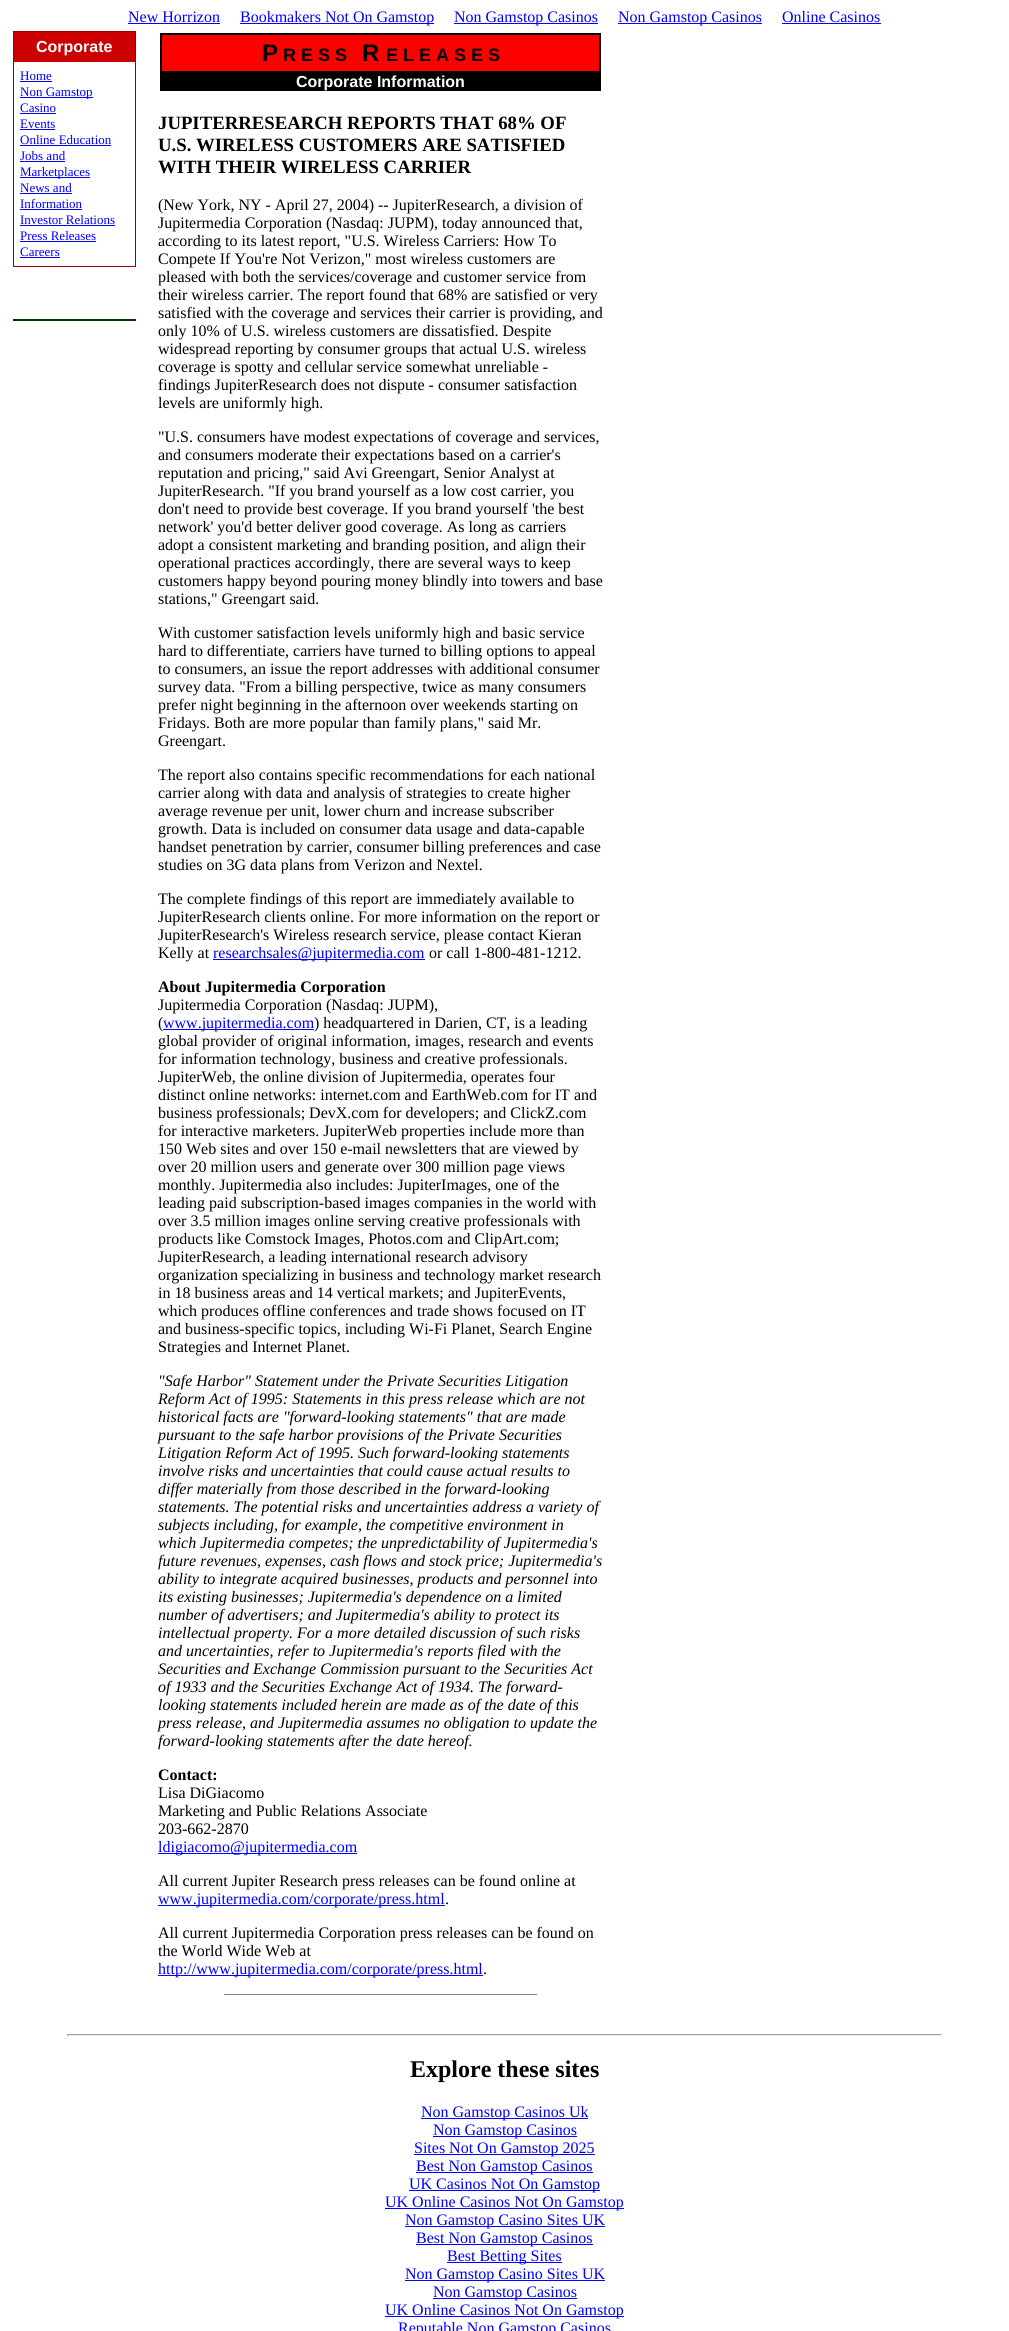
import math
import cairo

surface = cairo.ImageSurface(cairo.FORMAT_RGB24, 1009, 2331)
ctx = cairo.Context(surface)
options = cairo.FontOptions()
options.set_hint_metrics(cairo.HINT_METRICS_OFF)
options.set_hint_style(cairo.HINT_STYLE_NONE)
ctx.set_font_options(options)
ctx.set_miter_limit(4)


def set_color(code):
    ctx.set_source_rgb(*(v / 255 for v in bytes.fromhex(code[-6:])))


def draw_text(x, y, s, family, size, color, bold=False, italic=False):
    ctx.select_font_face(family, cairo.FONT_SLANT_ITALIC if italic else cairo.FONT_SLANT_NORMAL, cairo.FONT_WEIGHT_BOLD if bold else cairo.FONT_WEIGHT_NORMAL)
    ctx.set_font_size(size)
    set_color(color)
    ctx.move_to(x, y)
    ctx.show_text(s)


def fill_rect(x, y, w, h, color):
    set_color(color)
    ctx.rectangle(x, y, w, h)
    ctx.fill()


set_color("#ffffff")
ctx.paint()
draw_text(128, 22, "New Horrizon", "Liberation Serif", 16, "#0000ff")
fill_rect(128, 23, 92, 1, "#0000ff")
fill_rect(240, 23, 194, 1, "#0000ff")
draw_text(240, 22, "Bookmakers Not On Gamstop", "Liberation Serif", 16, "#0000ff")
fill_rect(454, 23, 144, 1, "#0000ff")
draw_text(454, 22, "Non Gamstop Casinos", "Liberation Serif", 16, "#0000ff")
fill_rect(618, 23, 144, 1, "#0000ff")
draw_text(618, 22, "Non Gamstop Casinos", "Liberation Serif", 16, "#0000ff")
draw_text(782, 22, "Online Casinos", "Liberation Serif", 16, "#0000ff")
fill_rect(782, 23, 99, 1, "#0000ff")
fill_rect(13, 31, 123, 236, "#990000")
fill_rect(14, 32, 121, 30, "#cc0000")
draw_text(36, 52, "Corporate", "Liberation Sans", 16, "#ffffff", bold=True)
fill_rect(14, 62, 121, 204, "#ffffff")
draw_text(20, 80, "Home", "Liberation Serif", 13, "#0000ff")
fill_rect(20, 81, 32, 1, "#0000ff")
fill_rect(20, 97, 73, 1, "#0000ff")
draw_text(20, 96, "Non Gamstop", "Liberation Serif", 13, "#0000ff")
draw_text(20, 112, "Casino", "Liberation Serif", 13, "#0000ff")
fill_rect(20, 113, 36, 1, "#0000ff")
draw_text(20, 128, "Events", "Liberation Serif", 13, "#0000ff")
fill_rect(20, 129, 35, 1, "#0000ff")
draw_text(20, 144, "Online Education", "Liberation Serif", 13, "#0000ff")
fill_rect(20, 145, 91, 1, "#0000ff")
draw_text(20, 160, "Jobs and", "Liberation Serif", 13, "#0000ff")
fill_rect(20, 161, 45, 1, "#0000ff")
fill_rect(20, 177, 70, 1, "#0000ff")
draw_text(20, 176, "Marketplaces", "Liberation Serif", 13, "#0000ff")
draw_text(20, 192, "News and", "Liberation Serif", 13, "#0000ff")
fill_rect(20, 193, 52, 1, "#0000ff")
draw_text(20, 208, "Information", "Liberation Serif", 13, "#0000ff")
fill_rect(20, 209, 62, 1, "#0000ff")
draw_text(20, 224, "Investor Relations", "Liberation Serif", 13, "#0000ff")
fill_rect(20, 225, 95, 1, "#0000ff")
draw_text(20, 240, "Press Releases", "Liberation Serif", 13, "#0000ff")
fill_rect(20, 241, 76, 1, "#0000ff")
draw_text(20, 256, "Careers", "Liberation Serif", 13, "#0000ff")
fill_rect(20, 257, 40, 1, "#0000ff")
fill_rect(13, 319, 123, 2, "#003300")
fill_rect(160, 33, 441, 58, "#000000")
fill_rect(162, 35, 437, 36, "#ff0000")
draw_text(262, 61, "P", "Liberation Sans", 24, "#000000", bold=True)
draw_text(283, 61, "R E S S", "Liberation Sans", 18, "#000000", bold=True)
draw_text(362, 61, "R", "Liberation Sans", 24, "#000000", bold=True)
draw_text(386, 61, "E L E A S E S", "Liberation Sans", 18, "#000000", bold=True)
draw_text(296, 87, "Corporate Information", "Liberation Sans", 16, "#ffffff", bold=True)
draw_text(158, 129, "JUPITERRESEARCH REPORTS THAT 68% OF", "Liberation Serif", 18.75, "#000000", bold=True)
draw_text(158, 151, "U.S. WIRELESS CUSTOMERS ARE SATISFIED", "Liberation Serif", 18.75, "#000000", bold=True)
draw_text(158, 173, "WITH THEIR WIRELESS CARRIER", "Liberation Serif", 18.75, "#000000", bold=True)
draw_text(158, 210, "(New York, NY - April 27, 2004) -- JupiterResearch, a division of", "Liberation Serif", 16, "#000000")
draw_text(158, 228, "Jupitermedia Corporation (Nasdaq: JUPM), today announced that,", "Liberation Serif", 16, "#000000")
draw_text(158, 246, "according to its latest report, \"U.S. Wireless Carriers: How To", "Liberation Serif", 16, "#000000")
draw_text(158, 264, "Compete If You're Not Verizon,\" most wireless customers are", "Liberation Serif", 16, "#000000")
draw_text(158, 282, "pleased with both the services/coverage and customer service from", "Liberation Serif", 16, "#000000")
draw_text(158, 300, "their wireless carrier. The report found that 68% are satisfied or very", "Liberation Serif", 16, "#000000")
draw_text(158, 318, "satisfied with the coverage and services their carrier is providing, and", "Liberation Serif", 16, "#000000")
draw_text(158, 336, "only 10% of U.S. wireless customers are dissatisfied. Despite", "Liberation Serif", 16, "#000000")
draw_text(158, 354, "widespread reporting by consumer groups that actual U.S. wireless", "Liberation Serif", 16, "#000000")
draw_text(158, 372, "coverage is spotty and cellular service somewhat unreliable -", "Liberation Serif", 16, "#000000")
draw_text(158, 390, "findings JupiterResearch does not dispute - consumer satisfaction", "Liberation Serif", 16, "#000000")
draw_text(158, 408, "levels are uniformly high.", "Liberation Serif", 16, "#000000")
draw_text(158, 442, "\"U.S. consumers have modest expectations of coverage and services,", "Liberation Serif", 16, "#000000")
draw_text(158, 460, "and consumers moderate their expectations based on a carrier's", "Liberation Serif", 16, "#000000")
draw_text(158, 478, "reputation and pricing,\" said Avi Greengart, Senior Analyst at", "Liberation Serif", 16, "#000000")
draw_text(158, 496, "JupiterResearch. \"If you brand yourself as a low cost carrier, you", "Liberation Serif", 16, "#000000")
draw_text(158, 514, "don't need to provide best coverage. If you brand yourself 'the best", "Liberation Serif", 16, "#000000")
draw_text(158, 532, "network' you'd better deliver good coverage. As long as carriers", "Liberation Serif", 16, "#000000")
draw_text(158, 550, "adopt a consistent marketing and branding position, and align their", "Liberation Serif", 16, "#000000")
draw_text(158, 568, "operational practices accordingly, there are several ways to keep", "Liberation Serif", 16, "#000000")
draw_text(158, 586, "customers happy beyond pouring money blindly into towers and base", "Liberation Serif", 16, "#000000")
draw_text(158, 604, "stations,\" Greengart said.", "Liberation Serif", 16, "#000000")
draw_text(158, 638, "With customer satisfaction levels uniformly high and basic service", "Liberation Serif", 16, "#000000")
draw_text(158, 656, "hard to differentiate, carriers have turned to billing options to appeal", "Liberation Serif", 16, "#000000")
draw_text(158, 674, "to consumers, an issue the report addresses with additional consumer", "Liberation Serif", 16, "#000000")
draw_text(158, 692, "survey data. \"From a billing perspective, twice as many consumers", "Liberation Serif", 16, "#000000")
draw_text(158, 710, "prefer night beginning in the afternoon over weekends starting on", "Liberation Serif", 16, "#000000")
draw_text(158, 728, "Fridays. Both are more popular than family plans,\" said Mr.", "Liberation Serif", 16, "#000000")
draw_text(158, 746, "Greengart.", "Liberation Serif", 16, "#000000")
draw_text(158, 780, "The report also contains specific recommendations for each national", "Liberation Serif", 16, "#000000")
draw_text(158, 798, "carrier along with data and analysis of strategies to create higher", "Liberation Serif", 16, "#000000")
draw_text(158, 816, "average revenue per unit, lower churn and increase subscriber", "Liberation Serif", 16, "#000000")
draw_text(158, 834, "growth. Data is included on consumer data usage and data-capable", "Liberation Serif", 16, "#000000")
draw_text(158, 852, "handset penetration by carrier, consumer billing preferences and case", "Liberation Serif", 16, "#000000")
draw_text(158, 870, "studies on 3G data plans from Verizon and Nextel.", "Liberation Serif", 16, "#000000")
draw_text(158, 904, "The complete findings of this report are immediately available to", "Liberation Serif", 16, "#000000")
draw_text(158, 922, "JupiterResearch clients online. For more information on the report or", "Liberation Serif", 16, "#000000")
draw_text(158, 940, "JupiterResearch's Wireless research service, please contact Kieran", "Liberation Serif", 16, "#000000")
draw_text(158, 958, "Kelly at", "Liberation Serif", 16, "#000000")
fill_rect(213, 959, 212, 1, "#0000ff")
draw_text(213, 958, "researchsales@jupitermedia.com", "Liberation Serif", 16, "#0000ff")
draw_text(429, 958, "or call 1-800-481-1212.", "Liberation Serif", 16, "#000000")
draw_text(158, 992, "About Jupitermedia Corporation", "Liberation Serif", 16, "#000000", bold=True)
draw_text(158, 1010, "Jupitermedia Corporation (Nasdaq: JUPM),", "Liberation Serif", 16, "#000000")
draw_text(158, 1028, "(", "Liberation Serif", 16, "#000000")
fill_rect(163, 1029, 151, 1, "#0000ff")
draw_text(163, 1028, "www.jupitermedia.com", "Liberation Serif", 16, "#0000ff")
draw_text(314, 1028, ") headquartered in Darien, CT, is a leading", "Liberation Serif", 16, "#000000")
draw_text(158, 1046, "global provider of original information, images, research and events", "Liberation Serif", 16, "#000000")
draw_text(158, 1064, "for information technology, business and creative professionals.", "Liberation Serif", 16, "#000000")
draw_text(158, 1082, "JupiterWeb, the online division of Jupitermedia, operates four", "Liberation Serif", 16, "#000000")
draw_text(158, 1100, "distinct online networks: internet.com and EarthWeb.com for IT and", "Liberation Serif", 16, "#000000")
draw_text(158, 1118, "business professionals; DevX.com for developers; and ClickZ.com", "Liberation Serif", 16, "#000000")
draw_text(158, 1136, "for interactive marketers. JupiterWeb properties include more than", "Liberation Serif", 16, "#000000")
draw_text(158, 1154, "150 Web sites and over 150 e-mail newsletters that are viewed by", "Liberation Serif", 16, "#000000")
draw_text(158, 1172, "over 20 million users and generate over 300 million page views", "Liberation Serif", 16, "#000000")
draw_text(158, 1190, "monthly. Jupitermedia also includes: JupiterImages, one of the", "Liberation Serif", 16, "#000000")
draw_text(158, 1208, "leading paid subscription-based images companies in the world with", "Liberation Serif", 16, "#000000")
draw_text(158, 1226, "over 3.5 million images online serving creative professionals with", "Liberation Serif", 16, "#000000")
draw_text(158, 1244, "products like Comstock Images, Photos.com and ClipArt.com;", "Liberation Serif", 16, "#000000")
draw_text(158, 1262, "JupiterResearch, a leading international research advisory", "Liberation Serif", 16, "#000000")
draw_text(158, 1280, "organization specializing in business and technology market research", "Liberation Serif", 16, "#000000")
draw_text(158, 1298, "in 18 business areas and 14 vertical markets; and JupiterEvents,", "Liberation Serif", 16, "#000000")
draw_text(158, 1316, "which produces offline conferences and trade shows focused on IT", "Liberation Serif", 16, "#000000")
draw_text(158, 1334, "and business-specific topics, including Wi-Fi Planet, Search Engine", "Liberation Serif", 16, "#000000")
draw_text(158, 1352, "Strategies and Internet Planet.", "Liberation Serif", 16, "#000000")
draw_text(158, 1386, "\"Safe Harbor\" Statement under the Private Securities Litigation", "Liberation Serif", 16, "#000000", italic=True)
draw_text(158, 1404, "Reform Act of 1995: Statements in this press release which are not", "Liberation Serif", 16, "#000000", italic=True)
draw_text(158, 1422, "historical facts are \"forward-looking statements\" that are made", "Liberation Serif", 16, "#000000", italic=True)
draw_text(158, 1440, "pursuant to the safe harbor provisions of the Private Securities", "Liberation Serif", 16, "#000000", italic=True)
draw_text(158, 1458, "Litigation Reform Act of 1995. Such forward-looking statements", "Liberation Serif", 16, "#000000", italic=True)
draw_text(158, 1476, "involve risks and uncertainties that could cause actual results to", "Liberation Serif", 16, "#000000", italic=True)
draw_text(158, 1494, "differ materially from those described in the forward-looking", "Liberation Serif", 16, "#000000", italic=True)
draw_text(158, 1512, "statements. The potential risks and uncertainties address a variety of", "Liberation Serif", 16, "#000000", italic=True)
draw_text(158, 1530, "subjects including, for example, the competitive environment in", "Liberation Serif", 16, "#000000", italic=True)
draw_text(158, 1548, "which Jupitermedia competes; the unpredictability of Jupitermedia's", "Liberation Serif", 16, "#000000", italic=True)
draw_text(158, 1566, "future revenues, expenses, cash flows and stock price; Jupitermedia's", "Liberation Serif", 16, "#000000", italic=True)
draw_text(158, 1584, "ability to integrate acquired businesses, products and personnel into", "Liberation Serif", 16, "#000000", italic=True)
draw_text(158, 1602, "its existing businesses; Jupitermedia's dependence on a limited", "Liberation Serif", 16, "#000000", italic=True)
draw_text(158, 1620, "number of advertisers; and Jupitermedia's ability to protect its", "Liberation Serif", 16, "#000000", italic=True)
draw_text(158, 1638, "intellectual property. For a more detailed discussion of such risks", "Liberation Serif", 16, "#000000", italic=True)
draw_text(158, 1656, "and uncertainties, refer to Jupitermedia's reports filed with the", "Liberation Serif", 16, "#000000", italic=True)
draw_text(158, 1674, "Securities and Exchange Commission pursuant to the Securities Act", "Liberation Serif", 16, "#000000", italic=True)
draw_text(158, 1692, "of 1933 and the Securities Exchange Act of 1934. The forward-", "Liberation Serif", 16, "#000000", italic=True)
draw_text(158, 1710, "looking statements included herein are made as of the date of this", "Liberation Serif", 16, "#000000", italic=True)
draw_text(158, 1728, "press release, and Jupitermedia assumes no obligation to update the", "Liberation Serif", 16, "#000000", italic=True)
draw_text(158, 1746, "forward-looking statements after the date hereof.", "Liberation Serif", 16, "#000000", italic=True)
draw_text(158, 1780, "Contact:", "Liberation Serif", 16, "#000000", bold=True)
draw_text(158, 1798, "Lisa DiGiacomo", "Liberation Serif", 16, "#000000")
draw_text(158, 1816, "Marketing and Public Relations Associate", "Liberation Serif", 16, "#000000")
draw_text(158, 1834, "203-662-2870", "Liberation Serif", 16, "#000000")
fill_rect(158, 1853, 199, 1, "#0000ff")
draw_text(158, 1852, "ldigiacomo@jupitermedia.com", "Liberation Serif", 16, "#0000ff")
draw_text(158, 1886, "All current Jupiter Research press releases can be found online at", "Liberation Serif", 16, "#000000")
fill_rect(158, 1905, 287, 1, "#0000ff")
draw_text(158, 1904, "www.jupitermedia.com/corporate/press.html", "Liberation Serif", 16, "#0000ff")
draw_text(445, 1904, ".", "Liberation Serif", 16, "#000000")
draw_text(158, 1938, "All current Jupitermedia Corporation press releases can be found on", "Liberation Serif", 16, "#000000")
draw_text(158, 1956, "the World Wide Web at", "Liberation Serif", 16, "#000000")
fill_rect(158, 1975, 325, 1, "#0000ff")
draw_text(158, 1974, "http://www.jupitermedia.com/corporate/press.html", "Liberation Serif", 16, "#0000ff")
draw_text(483, 1974, ".", "Liberation Serif", 16, "#000000")
fill_rect(224, 1994, 313, 1, "#808080")
fill_rect(67, 2034, 875, 1, "#9f9f9f")
fill_rect(941, 2034, 1, 2, "#eeeeee")
fill_rect(67, 2035, 875, 1, "#eeeeee")
fill_rect(67, 2034, 1, 2, "#9f9f9f")
draw_text(410, 2077, "Explore these sites", "Liberation Serif", 24, "#000000", bold=True)
fill_rect(421, 2118, 167, 1, "#0000ff")
draw_text(421, 2117, "Non Gamstop Casinos Uk", "Liberation Serif", 16, "#0000ff")
fill_rect(433, 2136, 144, 1, "#0000ff")
draw_text(433, 2135, "Non Gamstop Casinos", "Liberation Serif", 16, "#0000ff")
fill_rect(414, 2154, 181, 1, "#0000ff")
draw_text(414, 2153, "Sites Not On Gamstop 2025", "Liberation Serif", 16, "#0000ff")
fill_rect(416, 2172, 177, 1, "#0000ff")
draw_text(416, 2171, "Best Non Gamstop Casinos", "Liberation Serif", 16, "#0000ff")
fill_rect(409, 2190, 191, 1, "#0000ff")
draw_text(409, 2189, "UK Casinos Not On Gamstop", "Liberation Serif", 16, "#0000ff")
fill_rect(385, 2208, 239, 1, "#0000ff")
draw_text(385, 2207, "UK Online Casinos Not On Gamstop", "Liberation Serif", 16, "#0000ff")
fill_rect(405, 2226, 200, 1, "#0000ff")
draw_text(405, 2225, "Non Gamstop Casino Sites UK", "Liberation Serif", 16, "#0000ff")
fill_rect(416, 2244, 177, 1, "#0000ff")
draw_text(416, 2243, "Best Non Gamstop Casinos", "Liberation Serif", 16, "#0000ff")
fill_rect(447, 2262, 115, 1, "#0000ff")
draw_text(447, 2261, "Best Betting Sites", "Liberation Serif", 16, "#0000ff")
fill_rect(405, 2280, 200, 1, "#0000ff")
draw_text(405, 2279, "Non Gamstop Casino Sites UK", "Liberation Serif", 16, "#0000ff")
fill_rect(433, 2298, 144, 1, "#0000ff")
draw_text(433, 2297, "Non Gamstop Casinos", "Liberation Serif", 16, "#0000ff")
fill_rect(385, 2316, 239, 1, "#0000ff")
draw_text(385, 2315, "UK Online Casinos Not On Gamstop", "Liberation Serif", 16, "#0000ff")
draw_text(398, 2333, "Reputable Non Gamstop Casinos", "Liberation Serif", 16, "#0000ff")
surface.write_to_png("output.png")
